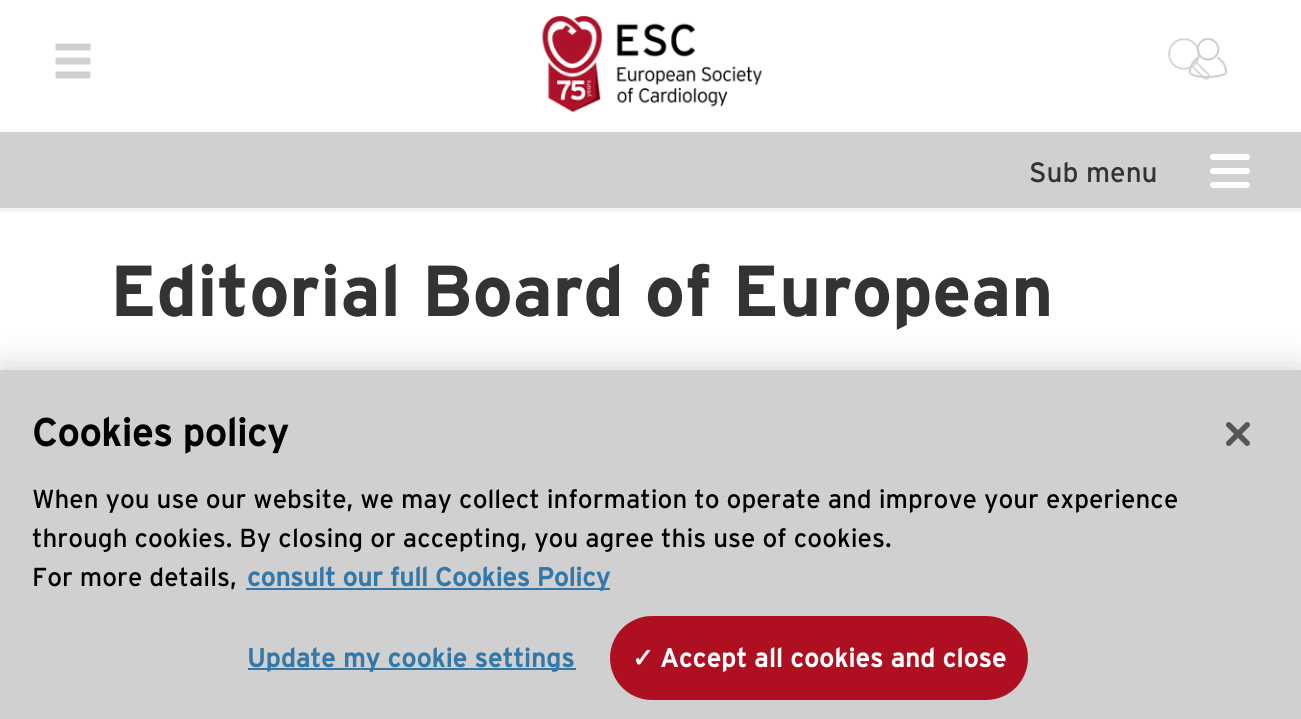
import math
import cairo

surface = cairo.ImageSurface(cairo.FORMAT_RGB24, 1301, 719)
ctx = cairo.Context(surface)
options = cairo.FontOptions()
options.set_hint_metrics(cairo.HINT_METRICS_OFF)
options.set_hint_style(cairo.HINT_STYLE_NONE)
ctx.set_font_options(options)
ctx.set_miter_limit(4)


def set_color(code):
    ctx.set_source_rgb(*(v / 255 for v in bytes.fromhex(code[-6:])))


def draw_text(x, y, s, family, size, color, bold=False, italic=False):
    ctx.select_font_face(family, cairo.FONT_SLANT_ITALIC if italic else cairo.FONT_SLANT_NORMAL, cairo.FONT_WEIGHT_BOLD if bold else cairo.FONT_WEIGHT_NORMAL)
    ctx.set_font_size(size)
    set_color(color)
    ctx.move_to(x, y)
    ctx.show_text(s)


def draw_spaced(x, y, s, letter, word):
    ctx.move_to(x, y)
    for ch in s:
        ctx.show_text(ch)
        ctx.rel_move_to(letter + word * (ch == ' '), 0)


def fill_rect(x, y, w, h, color):
    set_color(color)
    ctx.rectangle(x, y, w, h)
    ctx.fill()


def rounded_rect(x, y, w, h, r):
    ctx.new_sub_path()
    for i, (u, v) in enumerate([(x + w - r, y + h - r), (x + r, y + h - r), (x + r, y + r), (x + w - r, y + r)]):
        ctx.arc(u, v, r, i * math.pi / 2, (i + 1) * math.pi / 2)
    ctx.close_path()


def draw_shadow(x, y, w, h, r, blur, alpha):
    ctx.push_group_with_content(cairo.CONTENT_ALPHA)
    ctx.set_operator(cairo.OPERATOR_SOURCE)
    for i in range(15, -16, -2):
        e = blur * i / 6
        if min(w, h) + 2 * e > 0:
            ctx.set_source_rgba(0, 0, 0, alpha * math.erfc((i - 1) / 8.5) / 2)
            rounded_rect(x - e, y - e, w + 2 * e, h + 2 * e, max(0, min(r + e + blur * .6, min(w, h) / 2 + e)))
            ctx.fill()
    ctx.mask(ctx.pop_group())


def draw_image(path, x, y, w, h):
    ctx.save()
    ctx.set_source_surface(cairo.ImageSurface.create_from_png(path), x, y)
    ctx.rectangle(x, y, w, h)
    ctx.fill()
    ctx.restore()


set_color("#ffffff")
ctx.paint()
fill_rect(0, 132, 1301, 76, "#d0d0d0")
draw_image("assets/img1.png", 542, 16, 220, 96)
draw_image("assets/img2.png", 1168, 38, 42, 42)
draw_image("assets/img3.png", 55, 43, 36, 36)
draw_image("assets/img4.png", 1188, 38, 40, 40)
fill_rect(0, 208, 1301, 4, "#f3f3f3")
draw_text(1029, 182, "Sub menu", "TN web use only", 28, "#333333")
set_color("#ffffff")
rounded_rect(1210, 154, 40, 6, 3)
ctx.fill()
rounded_rect(1210, 168, 40, 6, 3)
ctx.fill()
rounded_rect(1210, 182, 40, 6, 3)
ctx.fill()
draw_text(110, 316, "Editorial Board of European", "TN web use only", 72, "#333333", bold=True)
set_color("#000000")
draw_shadow(0, 370, 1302, 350, 0, 18, 0.2)
fill_rect(0, 370, 1301, 349, "#d0d0d0")
draw_text(32, 446, "Cookies policy", "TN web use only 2", 38.5, "#000000", bold=True)
draw_text(32, 508, "When you use our website, we may collect information to operate and improve your experience", "TN web use only", 26, "#000000")
draw_text(32, 547, "through cookies. By closing or accepting, you agree this use of cookies.", "TN web use only", 26, "#000000")
draw_text(32, 586, "For more details,", "TN web use only", 26, "#000000")
fill_rect(246, 588, 364, 2, "#3378a9")
draw_text(247, 586, "consult our full Cookies Policy", "TN web use only 2", 26, "#3378a9", bold=True)
fill_rect(248, 668, 328, 2, "#3378a9")
draw_spaced(247, 667, "Update my cookie settings", 0.25, 0)
set_color("#ae1022")
rounded_rect(611, 617, 416, 82, 41)
ctx.fill_preserve()
ctx.stroke()
ctx.select_font_face("DejaVu Sans", cairo.FONT_SLANT_NORMAL, cairo.FONT_WEIGHT_BOLD)
set_color("#ffffff")
draw_spaced(632, 667, "✓", 0.25, 0)
ctx.select_font_face("TN web use only 2", cairo.FONT_SLANT_NORMAL, cairo.FONT_WEIGHT_BOLD)
draw_spaced(660, 667, "Accept all cookies and close", 0.25, 0)
draw_image("assets/img5.png", 1226, 422, 24, 24)
surface.write_to_png("output.png")
